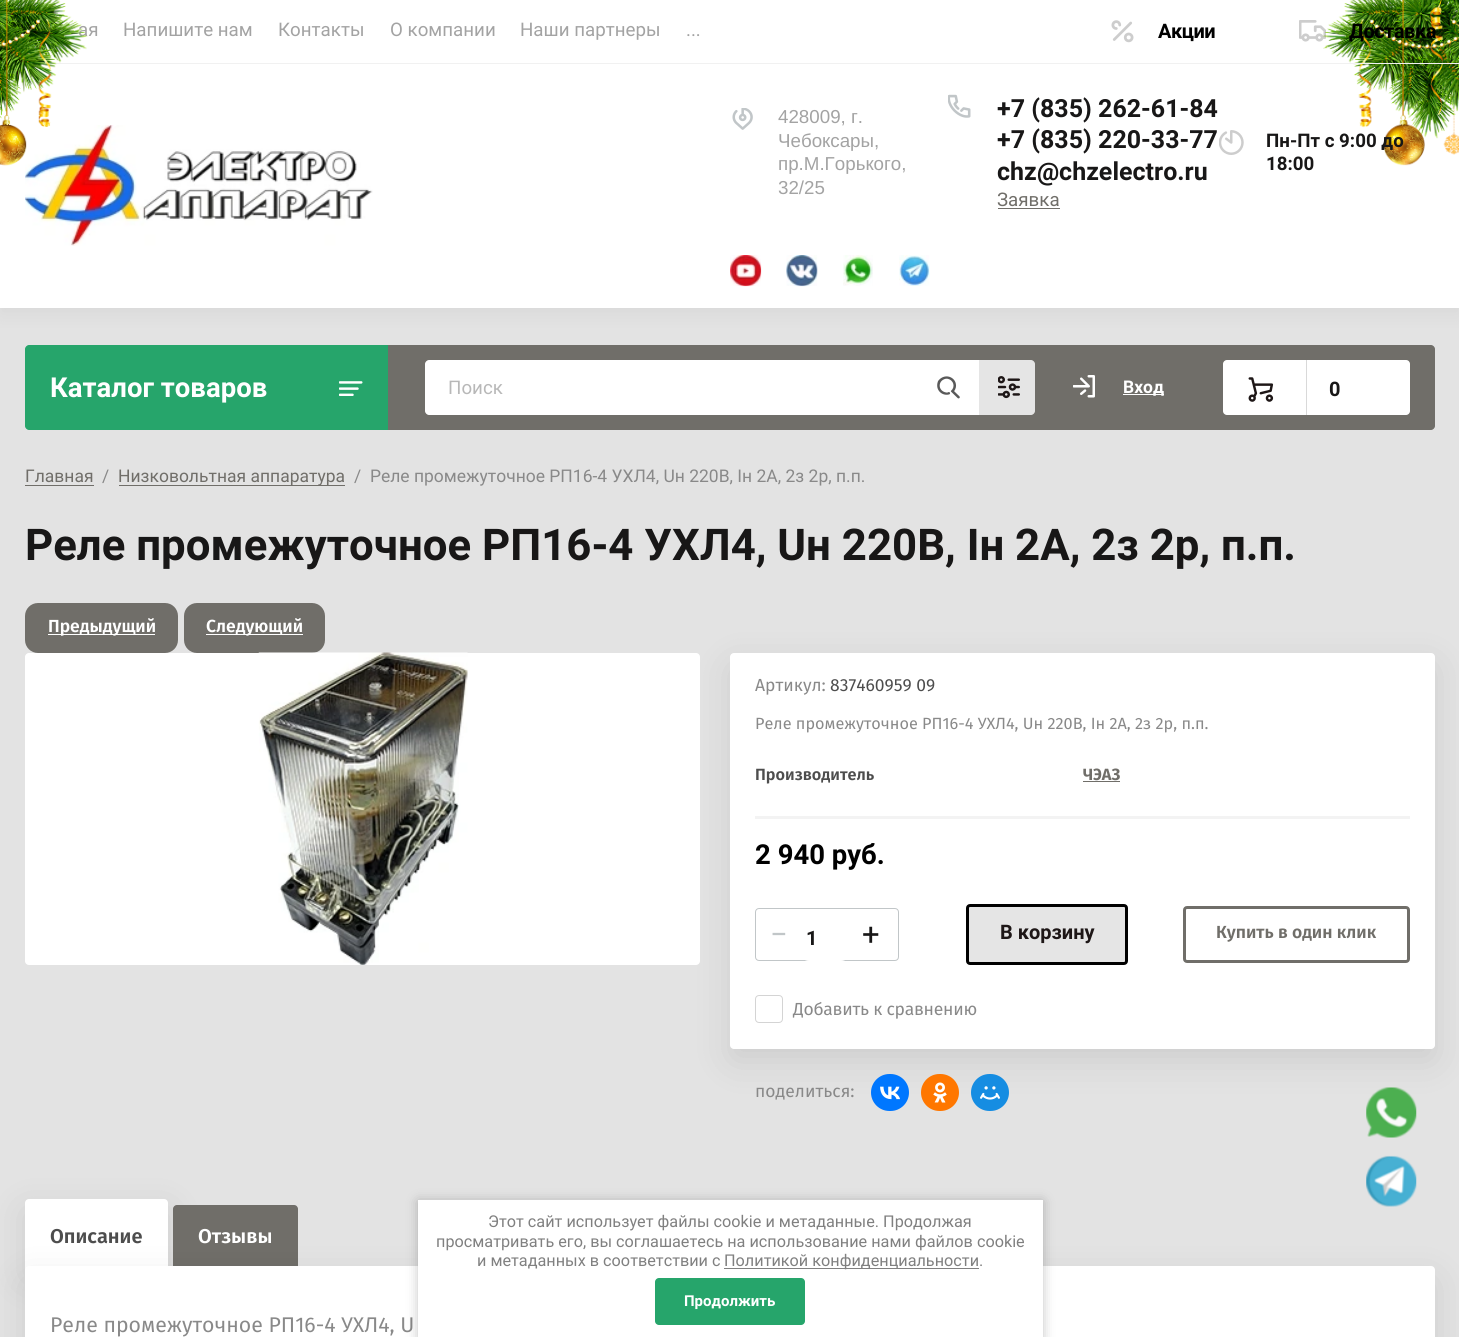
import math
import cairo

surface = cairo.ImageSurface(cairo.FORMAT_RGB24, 1459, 1337)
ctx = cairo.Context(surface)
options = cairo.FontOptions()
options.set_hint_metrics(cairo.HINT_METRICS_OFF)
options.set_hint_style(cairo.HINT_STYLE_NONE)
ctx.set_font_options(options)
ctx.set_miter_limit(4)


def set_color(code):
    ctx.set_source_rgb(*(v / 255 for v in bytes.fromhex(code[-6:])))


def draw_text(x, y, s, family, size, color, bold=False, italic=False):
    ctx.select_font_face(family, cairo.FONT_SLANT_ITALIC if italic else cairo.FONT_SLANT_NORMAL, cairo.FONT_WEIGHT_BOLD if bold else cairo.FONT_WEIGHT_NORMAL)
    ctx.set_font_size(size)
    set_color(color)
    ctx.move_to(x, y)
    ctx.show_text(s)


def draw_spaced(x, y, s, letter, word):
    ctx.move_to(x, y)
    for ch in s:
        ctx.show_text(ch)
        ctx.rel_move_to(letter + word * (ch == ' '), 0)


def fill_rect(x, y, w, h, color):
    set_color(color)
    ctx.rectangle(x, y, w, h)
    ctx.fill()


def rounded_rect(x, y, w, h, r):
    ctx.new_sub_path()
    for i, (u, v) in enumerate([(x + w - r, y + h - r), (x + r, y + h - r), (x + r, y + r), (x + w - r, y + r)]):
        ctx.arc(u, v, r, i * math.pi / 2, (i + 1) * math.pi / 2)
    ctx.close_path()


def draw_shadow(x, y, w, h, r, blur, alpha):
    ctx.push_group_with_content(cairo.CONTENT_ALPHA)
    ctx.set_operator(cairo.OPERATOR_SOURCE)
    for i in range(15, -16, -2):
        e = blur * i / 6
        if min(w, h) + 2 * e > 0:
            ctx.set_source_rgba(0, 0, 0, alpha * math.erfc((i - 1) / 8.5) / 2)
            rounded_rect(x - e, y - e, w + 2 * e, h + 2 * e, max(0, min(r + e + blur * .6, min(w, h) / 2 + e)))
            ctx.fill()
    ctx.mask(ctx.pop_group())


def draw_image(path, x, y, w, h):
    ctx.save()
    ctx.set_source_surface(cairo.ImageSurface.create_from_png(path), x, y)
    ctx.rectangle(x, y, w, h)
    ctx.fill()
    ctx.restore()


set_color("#e3e3e3")
ctx.paint()
set_color("#000000")
draw_shadow(0, 6, 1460, 308, 0, 9.5, 0.05)
fill_rect(0, 0, 1459, 308, "#ffffff")
draw_text(78, 36, "ая", "Roboto", 18.75, "#a3a3a3")
draw_image("assets/img2.png", 1322, 0, 137, 166)
fill_rect(40, 63, 1419, 1, "#f1f1f1")
draw_image("assets/img5.png", 25, 125, 348, 121)
draw_image("assets/img1.png", 0, 0, 88, 166)
draw_text(123, 36, "Напишите нам", "Roboto", 18.75, "#a3a3a3")
draw_text(278, 36, "Контакты", "Roboto", 18.75, "#a3a3a3")
draw_text(390, 36, "О компании", "Roboto", 18.75, "#a3a3a3")
draw_text(520, 36, "Наши партнеры", "Roboto", 18.75, "#a3a3a3")
draw_text(686, 36, "...", "Roboto", 18.75, "#a3a3a3")
draw_image("assets/img3.png", 1111, 20, 23, 23)
ctx.select_font_face("Roboto", cairo.FONT_SLANT_NORMAL, cairo.FONT_WEIGHT_BOLD)
ctx.set_font_size(20)
set_color("#000000")
draw_spaced(1158, 38, "Акции", -0.5, 0)
draw_image("assets/img4.png", 1299, 20, 27, 22)
draw_spaced(1349, 38, "Доставка", -0.5, 0)
draw_image("assets/img6.png", 732, 108, 21, 22)
draw_text(778, 123, "428009, г.", "Liberation Sans", 18.75, "#a3a3a3")
draw_text(778, 147, "Чебоксары,", "Liberation Sans", 18.75, "#a3a3a3")
draw_text(778, 170, "пр.М.Горького,", "Liberation Sans", 18.75, "#a3a3a3")
draw_text(778, 194, "32/25", "Liberation Sans", 18.75, "#a3a3a3")
draw_image("assets/img7.png", 948, 94, 23, 24)
draw_text(997, 117, "+7 (835) 262-61-84", "Roboto", 25, "#181717", bold=True)
draw_text(997, 148, "+7 (835) 220-33-77", "Roboto", 25, "#181717", bold=True)
draw_text(997, 180, "chz@chzelectro.ru", "Roboto", 25, "#181717", bold=True)
draw_text(997, 206, "Заявка", "Roboto", 18.75, "#706e69")
fill_rect(998, 208, 62, 1, "#706e69")
draw_image("assets/img8.png", 1219, 130, 25, 25)
draw_text(1266, 147, "Пн-Пт с 9:00 до", "Roboto", 18.75, "#181717", bold=True)
draw_text(1266, 170, "18:00", "Roboto", 18.75, "#181717", bold=True)
draw_image("assets/img9.png", 730, 255, 32, 32)
draw_image("assets/img10.png", 786, 255, 32, 32)
draw_image("assets/img11.png", 843, 255, 30, 31)
draw_image("assets/img12.png", 899, 255, 31, 31)
set_color("#26a56b")
ctx.new_path()
ctx.move_to(29, 345)
ctx.line_to(388, 345)
ctx.line_to(388, 430)
ctx.line_to(29, 430)
ctx.curve_to(27, 430, 25, 428, 25, 426)
ctx.line_to(25, 349)
ctx.curve_to(25, 347, 27, 345, 29, 345)
ctx.close_path()
ctx.fill()
draw_image("assets/img13.png", 339, 381, 24, 15)
draw_text(50, 397, "Каталог товаров", "Roboto", 27.5, "#ffffff", bold=True)
set_color("#706e69")
ctx.new_path()
ctx.move_to(388, 345)
ctx.line_to(1431, 345)
ctx.curve_to(1433, 345, 1435, 347, 1435, 349)
ctx.line_to(1435, 426)
ctx.curve_to(1435, 428, 1433, 430, 1431, 430)
ctx.line_to(388, 430)
ctx.close_path()
ctx.fill()
set_color("#ffffff")
ctx.new_path()
ctx.move_to(429, 360)
ctx.line_to(979, 360)
ctx.line_to(979, 415)
ctx.line_to(429, 415)
ctx.curve_to(427, 415, 425, 413, 425, 411)
ctx.line_to(425, 364)
ctx.curve_to(425, 362, 427, 360, 429, 360)
ctx.close_path()
ctx.fill()
draw_text(448, 394, "Поиск", "Roboto", 18.75, "#b8b8b8")
draw_image("assets/img14.png", 937, 376, 23, 23)
set_color("#e5e5e5")
ctx.new_path()
ctx.move_to(979, 360)
ctx.line_to(1031, 360)
ctx.curve_to(1033, 360, 1035, 362, 1035, 364)
ctx.line_to(1035, 411)
ctx.curve_to(1035, 413, 1033, 415, 1031, 415)
ctx.line_to(979, 415)
ctx.close_path()
ctx.fill()
draw_image("assets/img15.png", 998, 376, 22, 23)
draw_image("assets/img16.png", 1073, 375, 22, 23)
fill_rect(1123, 394, 41, 1, "#ffffff")
draw_text(1123, 393, "Вход", "Roboto", 17.5, "#ffffff", bold=True)
rounded_rect(1223, 360, 187, 55, 4)
ctx.fill()
draw_image("assets/img17.png", 1248, 377, 26, 25)
fill_rect(1306, 360, 1, 55, "#d9d9d9")
draw_text(1329, 396, "0", "Roboto", 20, "#181717", bold=True)
draw_text(25, 482, "Главная", "Roboto", 17.5, "#706e69")
fill_rect(25, 485, 69, 1, "#706e69")
draw_text(102, 482, "/", "Roboto", 17.5, "#898989")
fill_rect(119, 485, 226, 1, "#706e69")
draw_text(118, 482, "Низковольтная аппаратура", "Roboto", 17.5, "#706e69")
draw_text(354, 482, "/  Реле промежуточное РП16-4 УХЛ4, Uн 220В, Iн 2А, 2з 2р, п.п.", "Roboto", 17.5, "#898989")
draw_text(25, 560, "Реле промежуточное РП16-4 УХЛ4, Uн 220В, Iн 2А, 2з 2р, п.п.", "Roboto", 43.75, "#181717", bold=True)
set_color("#706e69")
rounded_rect(25, 603, 153, 50, 13)
ctx.fill()
fill_rect(48, 634, 107, 1, "#ffffff")
draw_text(48, 632, "Предыдущий", "Fira Sans SemiBold", 17.5, "#ffffff")
set_color("#706e69")
rounded_rect(184, 603, 141, 50, 13)
ctx.fill()
fill_rect(206, 634, 97, 1, "#ffffff")
draw_text(206, 632, "Следующий", "Fira Sans SemiBold", 17.5, "#ffffff")
set_color("#000000")
draw_shadow(730, 665, 705, 396, 4, 18, 0.1)
set_color("#ffffff")
rounded_rect(25, 653, 675, 312, 4)
ctx.fill()
draw_image("assets/img18.png", 258, 652, 210, 313)
rounded_rect(730, 653, 705, 396, 4)
ctx.fill()
draw_text(755, 691, "Артикул:", "Fira Sans", 17.5, "#898989")
draw_text(830, 691, "837460959 09", "Fira Sans", 17.5, "#4d4d4d")
draw_text(755, 729, "Реле промежуточное РП16-4 УХЛ4, Uн 220В, Iн 2А, 2з 2р, п.п.", "Fira Sans", 16.25, "#898989")
draw_text(755, 780, "Производитель", "Fira Sans SemiBold", 16.25, "#4d4d4d")
draw_text(1083, 780, "ЧЭАЗ", "Fira Sans", 16.25, "#706e69", bold=True)
fill_rect(1083, 781, 37, 1, "#706e69")
fill_rect(755, 816, 655, 3, "#f3f3f3")
draw_text(755, 864, "2 940 руб.", "Roboto", 27.5, "#000000", bold=True)
rounded_rect(755.5, 908.5, 143, 52, 3.5)
set_color("#c1c6c8")
ctx.set_line_width(1)
ctx.stroke()
draw_text(770, 945, "−", "Roboto", 31, "#c1c6c8")
set_color("#ffffff")
rounded_rect(800, 915, 50, 46, 9)
ctx.fill()
draw_text(806, 945, "1", "Roboto", 20, "#181717", bold=True)
draw_text(862, 945, "+", "Roboto", 31, "#181717")
set_color("#e5e5e5")
rounded_rect(967.5, 905.5, 159, 58, 2.5)
ctx.fill_preserve()
set_color("#000000")
ctx.set_line_width(3)
ctx.stroke()
draw_text(1000, 939, "В корзину", "Roboto", 20, "#1e1717", bold=True)
rounded_rect(1184.5, 907.5, 224, 54, 2.5)
set_color("#706e69")
ctx.stroke()
draw_text(1216, 938, "Купить в один клик", "Fira Sans SemiBold", 17.5, "#706e69")
rounded_rect(755.5, 995.5, 27, 27, 3.5)
set_color("#d4d4d4")
ctx.set_line_width(1)
ctx.stroke()
ctx.select_font_face("Fira Sans")
set_color("#898989")
draw_spaced(793, 1015, "Добавить к сравнению", -0.25, 0)
draw_text(755, 1097, "поделиться:", "Fira Sans", 17.5, "#898989")
set_color("#0077ff")
rounded_rect(871, 1074, 38, 37, 18.5)
ctx.fill()
draw_image("assets/img19.png", 880, 1086, 20, 14)
set_color("#ff7700")
rounded_rect(921, 1074, 38, 37, 18.5)
ctx.fill()
draw_image("assets/img20.png", 933, 1082, 14, 21)
set_color("#168de2")
rounded_rect(971, 1074, 38, 37, 18.5)
ctx.fill()
draw_image("assets/img21.png", 980, 1086, 20, 14)
set_color("#000000")
draw_shadow(25, 1211, 143, 68, 0, 18, 0.1)
set_color("#ffffff")
rounded_rect(25, 1199, 143, 82, 4)
ctx.fill()
draw_text(50, 1243, "Описание", "Fira Sans SemiBold", 20, "#4d4d4d")
set_color("#706e69")
rounded_rect(173, 1205, 125, 76, 4)
ctx.fill()
draw_text(198, 1243, "Отзывы", "Fira Sans SemiBold", 20, "#ffffff")
set_color("#000000")
draw_shadow(25, 1279, 1410, 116, 4, 18, 0.1)
set_color("#ffffff")
rounded_rect(25, 1266, 1410, 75, 4)
ctx.fill()
draw_text(50, 1332, "Реле промежуточное РП16-4 УХЛ4, U", "Fira Sans", 21.25, "#898989")
draw_image("assets/img22.png", 1366, 1087, 51, 51)
draw_image("assets/img23.png", 1366, 1155, 51, 52)
set_color("#000000")
draw_shadow(418, 1201, 625, 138, 0, 6, 0.23)
fill_rect(418, 1200, 625, 137, "#ffffff")
draw_text(488, 1227, "Этот сайт использует файлы cookie и метаданные. Продолжая", "Roboto", 16.25, "#808080")
draw_text(436, 1247, "просматривать его, вы соглашаетесь на использование нами файлов cookie", "Roboto", 16.25, "#808080")
draw_text(477, 1266, "и метаданных в соответствии с", "Roboto", 16.25, "#808080")
fill_rect(724, 1268, 255, 1, "#808080")
draw_text(724, 1266, "Политикой конфиденциальности.", "Roboto", 16.25, "#808080")
set_color("#26a56b")
rounded_rect(655, 1278, 150, 47, 4)
ctx.fill()
draw_text(684, 1306, "Продолжить", "Roboto", 15, "#ffffff", bold=True)
surface.write_to_png("output.png")
